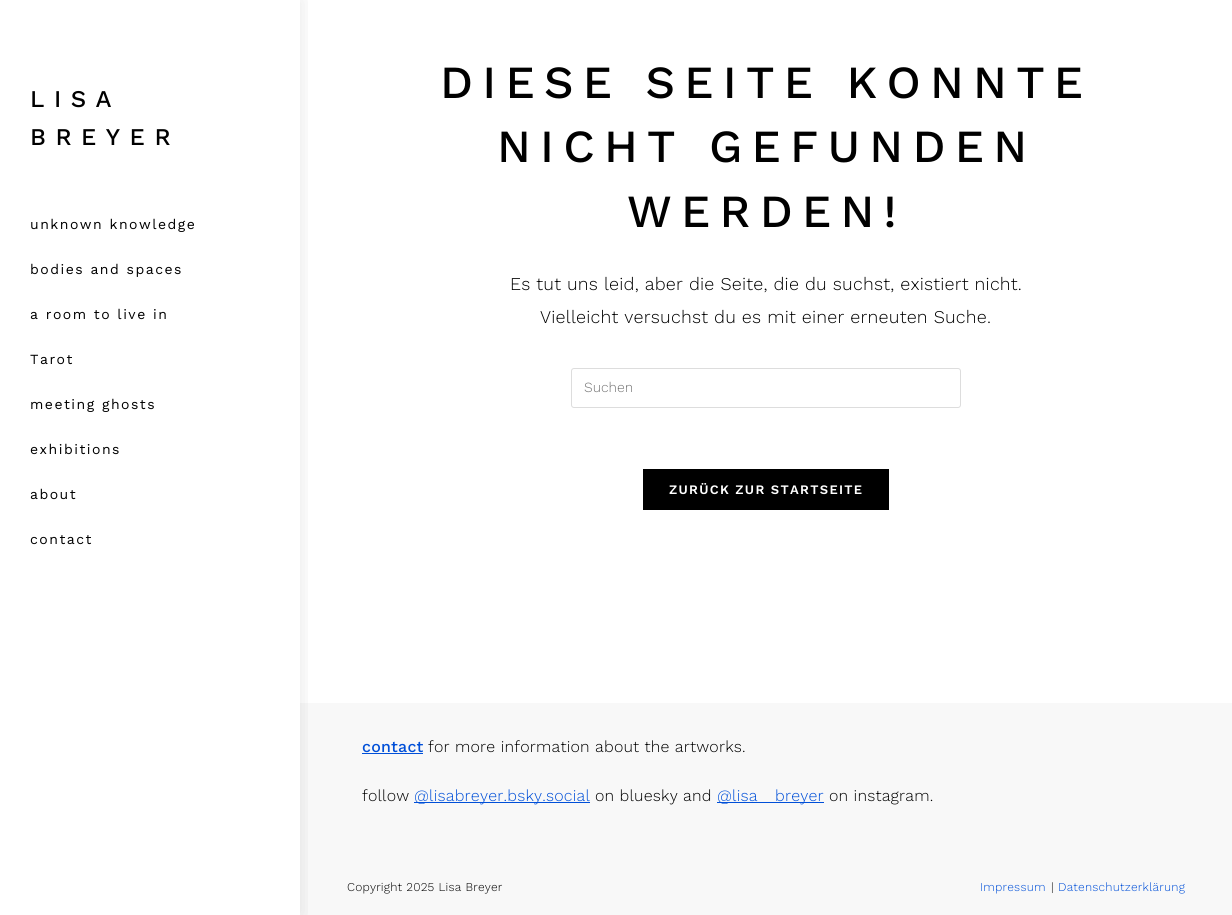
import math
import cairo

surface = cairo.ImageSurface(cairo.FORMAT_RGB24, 1232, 915)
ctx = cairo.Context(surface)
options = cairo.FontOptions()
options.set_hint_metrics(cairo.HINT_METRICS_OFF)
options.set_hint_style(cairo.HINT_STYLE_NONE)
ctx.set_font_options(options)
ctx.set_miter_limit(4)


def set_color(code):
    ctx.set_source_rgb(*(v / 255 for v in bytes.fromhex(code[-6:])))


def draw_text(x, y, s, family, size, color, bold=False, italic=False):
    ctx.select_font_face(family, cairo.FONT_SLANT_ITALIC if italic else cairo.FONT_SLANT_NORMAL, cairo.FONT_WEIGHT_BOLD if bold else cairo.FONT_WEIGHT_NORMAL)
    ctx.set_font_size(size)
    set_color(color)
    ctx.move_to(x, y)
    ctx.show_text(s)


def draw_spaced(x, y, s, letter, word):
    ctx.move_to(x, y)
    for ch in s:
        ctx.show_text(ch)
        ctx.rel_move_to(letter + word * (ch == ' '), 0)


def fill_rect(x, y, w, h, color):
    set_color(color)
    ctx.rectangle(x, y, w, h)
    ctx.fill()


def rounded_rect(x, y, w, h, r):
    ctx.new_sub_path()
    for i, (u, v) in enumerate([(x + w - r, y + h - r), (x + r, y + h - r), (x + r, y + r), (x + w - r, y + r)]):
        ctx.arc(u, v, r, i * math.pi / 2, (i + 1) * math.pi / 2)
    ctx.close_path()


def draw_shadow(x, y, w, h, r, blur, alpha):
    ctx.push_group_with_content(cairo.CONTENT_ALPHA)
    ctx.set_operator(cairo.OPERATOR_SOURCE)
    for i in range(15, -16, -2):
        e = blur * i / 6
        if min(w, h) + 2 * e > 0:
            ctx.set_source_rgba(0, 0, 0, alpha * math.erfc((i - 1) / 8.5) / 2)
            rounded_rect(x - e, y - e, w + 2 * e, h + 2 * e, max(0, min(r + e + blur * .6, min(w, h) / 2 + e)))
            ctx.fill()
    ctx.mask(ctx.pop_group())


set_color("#ffffff")
ctx.paint()
fill_rect(300, 703, 932, 212, "#f8f8f8")
ctx.save()
ctx.rectangle(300, 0, 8, 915)
ctx.clip()
set_color("#000000")
draw_shadow(0, 0, 300, 915, 0, 10, 0.1)
ctx.restore()
ctx.select_font_face("Work Sans Medium")
ctx.set_font_size(24)
set_color("#000000")
draw_spaced(30, 107, "LISA", 9.5, 0)
draw_spaced(30, 145, "BREYER", 9.5, 0)
ctx.select_font_face("Work Sans")
ctx.set_font_size(14)
draw_spaced(30, 229, "unknown knowledge", 1.5, 0)
draw_spaced(30, 274, "bodies and spaces", 1.5, 0)
draw_spaced(30, 319, "a room to live in", 1.5, 0)
draw_spaced(30, 364, "Tarot", 1.5, 0)
draw_spaced(30, 409, "meeting ghosts", 1.5, 0)
draw_spaced(30, 454, "exhibitions", 1.5, 0)
draw_spaced(30, 499, "about", 1.5, 0)
draw_spaced(30, 544, "contact", 1.5, 0)
ctx.select_font_face("Work Sans Medium")
ctx.set_font_size(46)
draw_spaced(440, 98, "DIESE SEITE KONNTE", 9.25, 0)
draw_spaced(497, 162, "NICHT GEFUNDEN", 9.25, 0)
draw_spaced(627, 227, "WERDEN!", 9.25, 0)
ctx.select_font_face("Work Sans Light")
ctx.set_font_size(18)
draw_spaced(510, 290, "Es tut uns leid, aber die Seite, die du suchst, existiert nicht.", 0.2, 0)
draw_spaced(540, 323, "Vielleicht versuchst du es mit einer erneuten Suche.", 0.2, 0)
rounded_rect(571.5, 368.5, 389, 39, 2.5)
set_color("#dddddd")
ctx.set_line_width(1)
ctx.stroke()
draw_text(584, 392, "Suchen", "Work Sans Light", 14, "#757575")
fill_rect(643, 469, 246, 41, "#000000")
ctx.select_font_face("Work Sans SemiBold")
ctx.set_font_size(13)
set_color("#ffffff")
draw_spaced(669, 494, "ZURÜCK ZUR STARTSEITE", 1.3, 0)
ctx.select_font_face("Work Sans Medium")
ctx.set_font_size(16)
set_color("#004fd8")
draw_spaced(362, 752, "contact", 0.2, 0)
fill_rect(362, 753, 61, 1, "#004fd8")
ctx.select_font_face("Work Sans Light")
set_color("#000000")
draw_spaced(428, 752, "for more information about the artworks.", 0.2, 0)
draw_spaced(362, 801, "follow", 0.2, 0)
fill_rect(414, 802, 176, 1, "#004fd8")
draw_spaced(414, 801, "@lisabreyer.bsky.social", 0.2, 0)
set_color("#000000")
draw_spaced(595, 801, "on bluesky and", 0.2, 0)
fill_rect(717, 802, 107, 1, "#004fd8")
draw_spaced(717, 801, "@lisa", 0.2, 0)
draw_spaced(775, 801, "breyer", 0.2, 0)
set_color("#000000")
draw_spaced(829, 801, "on instagram.", 0.2, 0)
ctx.set_font_size(12)
draw_spaced(347, 891, "Copyright 2025 Lisa Breyer", 0.2, 0)
set_color("#004fd8")
draw_spaced(980, 891, "Impressum", 0.2, 0)
set_color("#000000")
draw_spaced(1051, 891, "|", 0.2, 0)
set_color("#004fd8")
draw_spaced(1058, 891, "Datenschutzerklärung", 0.2, 0)
surface.write_to_png("output.png")
